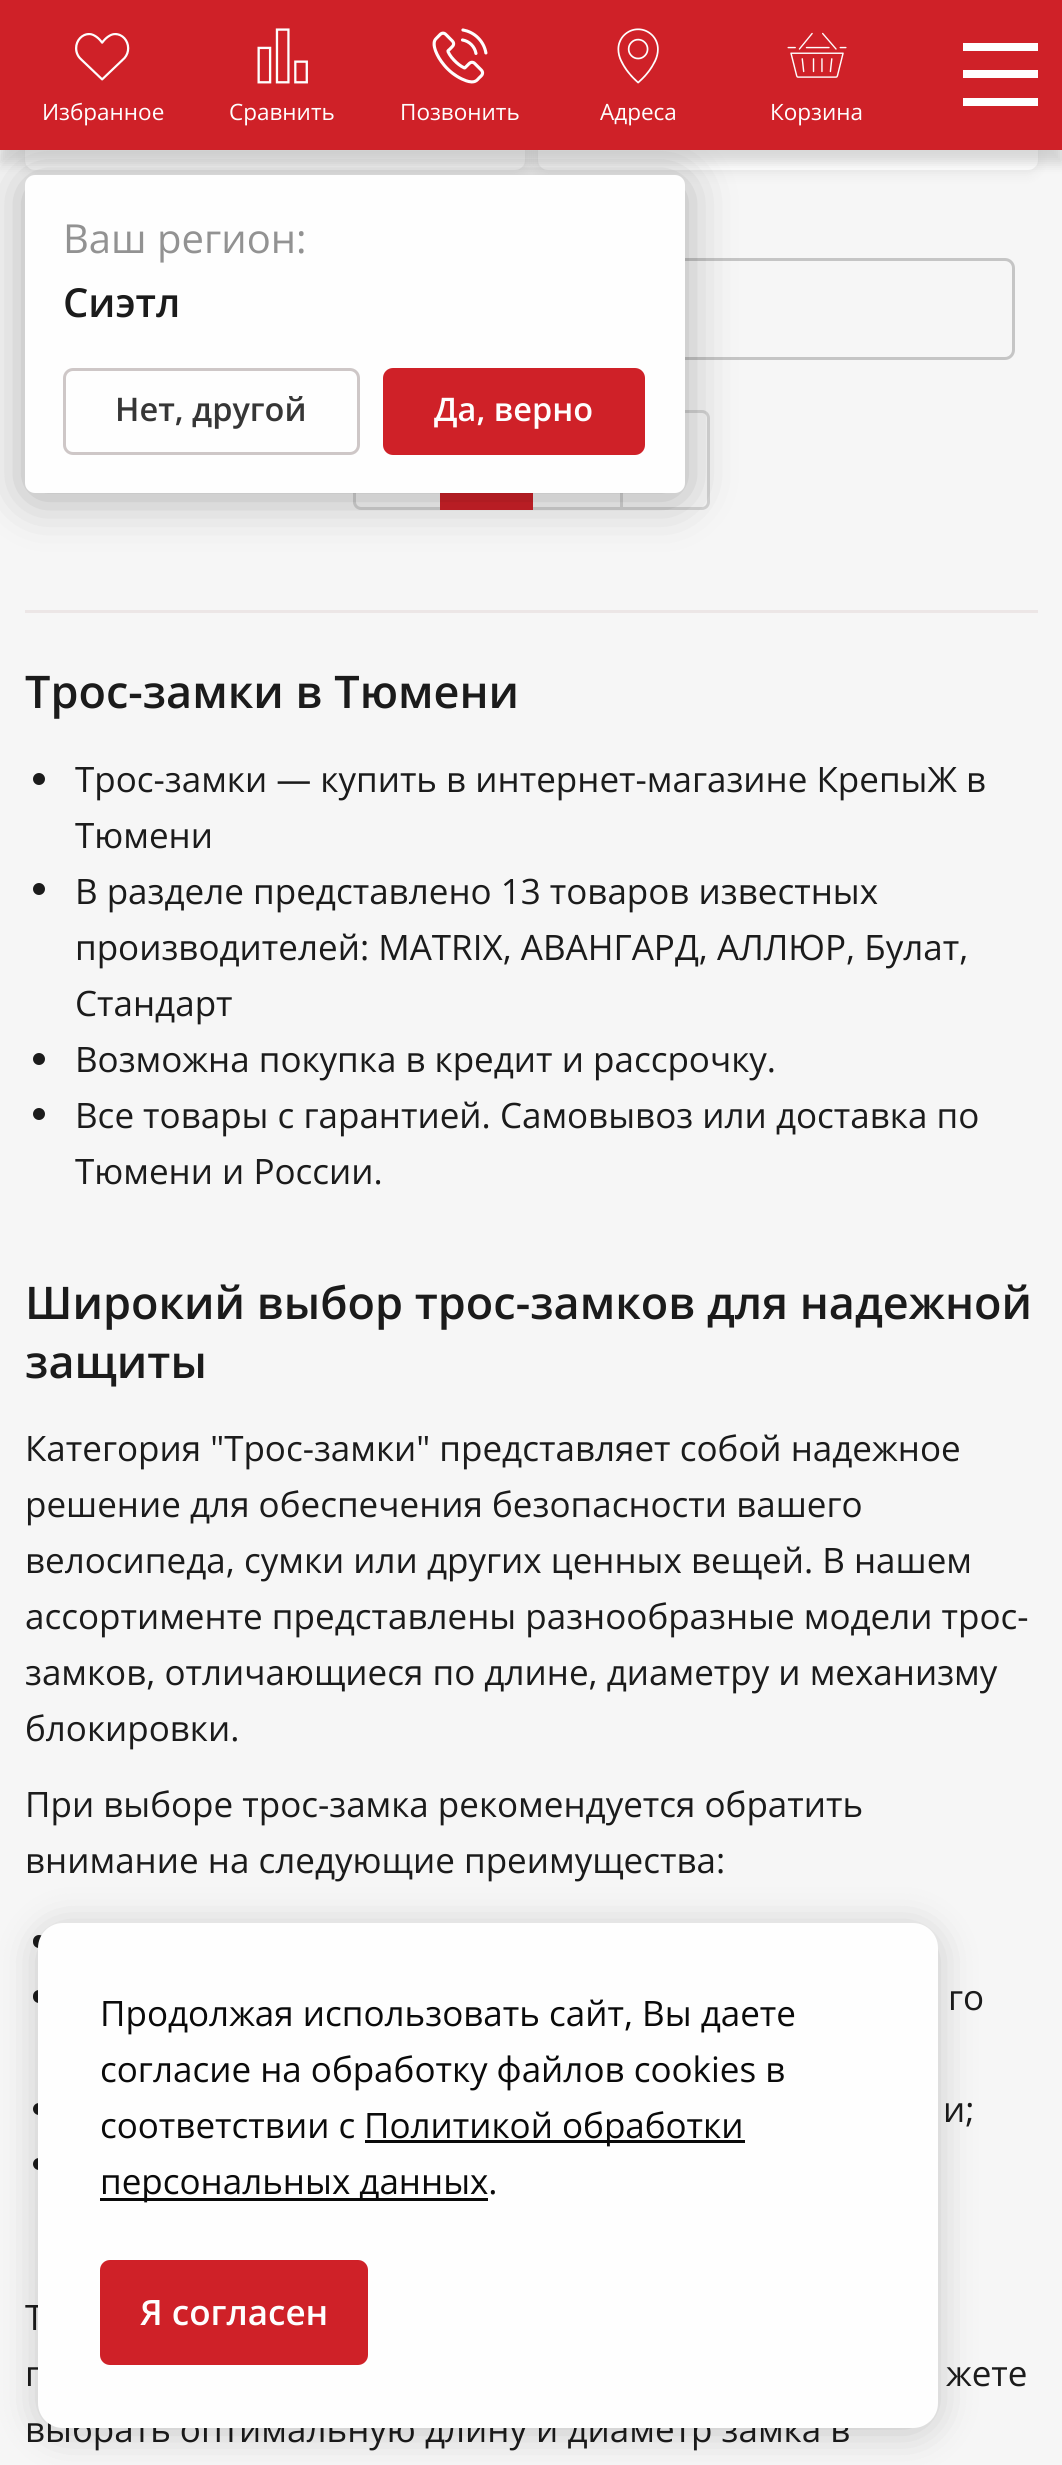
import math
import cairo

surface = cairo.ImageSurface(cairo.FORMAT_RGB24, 1062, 2465)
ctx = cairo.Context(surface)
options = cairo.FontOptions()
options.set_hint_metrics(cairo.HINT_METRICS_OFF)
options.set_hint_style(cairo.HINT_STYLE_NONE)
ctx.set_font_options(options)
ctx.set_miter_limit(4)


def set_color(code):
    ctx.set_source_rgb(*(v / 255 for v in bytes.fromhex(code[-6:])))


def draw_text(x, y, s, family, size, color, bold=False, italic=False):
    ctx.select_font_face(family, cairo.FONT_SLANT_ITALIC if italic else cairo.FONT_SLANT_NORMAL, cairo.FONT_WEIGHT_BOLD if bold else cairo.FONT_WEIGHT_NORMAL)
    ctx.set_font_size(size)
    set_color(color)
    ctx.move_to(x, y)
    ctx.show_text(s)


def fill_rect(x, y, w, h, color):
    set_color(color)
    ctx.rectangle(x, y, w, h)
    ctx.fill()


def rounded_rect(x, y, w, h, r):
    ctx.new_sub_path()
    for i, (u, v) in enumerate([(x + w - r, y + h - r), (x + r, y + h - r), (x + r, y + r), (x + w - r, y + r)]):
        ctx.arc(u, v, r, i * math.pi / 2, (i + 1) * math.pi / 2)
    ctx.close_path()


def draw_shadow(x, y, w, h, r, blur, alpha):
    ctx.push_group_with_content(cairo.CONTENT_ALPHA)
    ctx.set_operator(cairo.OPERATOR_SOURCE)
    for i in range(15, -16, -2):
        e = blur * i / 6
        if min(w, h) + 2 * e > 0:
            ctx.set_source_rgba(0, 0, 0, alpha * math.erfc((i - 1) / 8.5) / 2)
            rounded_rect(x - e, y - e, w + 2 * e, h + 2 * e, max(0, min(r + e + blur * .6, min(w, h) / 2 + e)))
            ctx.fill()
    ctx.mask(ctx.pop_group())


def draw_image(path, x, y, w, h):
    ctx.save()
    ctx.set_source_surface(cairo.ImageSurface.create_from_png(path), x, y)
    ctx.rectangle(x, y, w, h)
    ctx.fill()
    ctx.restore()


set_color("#f6f6f6")
ctx.paint()
set_color("#000000")
draw_shadow(25, -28, 500, 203, 10, 6, 0.05)
set_color("#fefefe")
rounded_rect(25, -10, 500, 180, 10)
ctx.fill()
set_color("#000000")
draw_shadow(538, -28, 500, 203, 10, 6, 0.05)
set_color("#fefefe")
rounded_rect(538, -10, 500, 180, 10)
ctx.fill()
rounded_rect(51.5, 259.5, 962, 99, 8.5)
set_color("#c5c5c5")
ctx.set_line_width(3)
ctx.stroke()
ctx.new_path()
ctx.move_to(361, 411.5)
ctx.line_to(441.5, 411.5)
ctx.line_to(441.5, 508.5)
ctx.line_to(361, 508.5)
ctx.curve_to(357.5, 508.5, 354.5, 505.5, 354.5, 502)
ctx.line_to(354.5, 418)
ctx.curve_to(354.5, 414.5, 357.5, 411.5, 361, 411.5)
ctx.close_path()
set_color("#d4d4d4")
ctx.stroke()
ctx.rectangle(531.5, 411.5, 90, 97)
ctx.stroke()
ctx.new_path()
ctx.move_to(621.5, 411.5)
ctx.line_to(702, 411.5)
ctx.curve_to(705.5, 411.5, 708.5, 414.5, 708.5, 418)
ctx.line_to(708.5, 502)
ctx.curve_to(708.5, 505.5, 705.5, 508.5, 702, 508.5)
ctx.line_to(621.5, 508.5)
ctx.close_path()
ctx.stroke()
fill_rect(440, 493, 93, 17, "#cf2128")
set_color("#000000")
draw_shadow(25, 180, 660, 318, 10, 25, 0.3)
set_color("#fefefe")
rounded_rect(25, 175, 660, 318, 10)
ctx.fill()
set_color("#000000")
draw_shadow(0, 13, 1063, 150, 0, 6, 0.15)
fill_rect(0, 0, 1062, 150, "#cf2128")
fill_rect(963, 98, 75, 8, "#fefefe")
fill_rect(963, 70, 75, 8, "#fefefe")
fill_rect(963, 43, 75, 8, "#fefefe")
draw_image("assets/img1.png", 75, 33, 55, 48)
draw_text(42, 120, "Избранное", "Open Sans", 22.5, "#fefefe")
draw_image("assets/img2.png", 257, 28, 51, 56)
draw_text(229, 120, "Сравнить", "Open Sans", 22.5, "#fefefe")
draw_image("assets/img3.png", 432, 28, 56, 56)
draw_text(400, 120, "Позвонить", "Open Sans", 22.5, "#fefefe")
draw_image("assets/img4.png", 617, 28, 42, 56)
draw_text(600, 120, "Адреса", "Open Sans", 22.5, "#fefefe")
draw_image("assets/img5.png", 787, 32, 60, 46)
draw_text(770, 120, "Корзина", "Open Sans", 22.5, "#fefefe")
fill_rect(25, 610, 1013, 3, "#ece6e6")
draw_text(25, 708, "Трос-замки в Тюмени", "Open Sans SemiBold", 45, "#1b1b1b")
ctx.new_path()
ctx.arc(39, 779, 6, 0, 2 * math.pi)
ctx.fill()
draw_text(75, 792, "Трос-замки — купить в интернет-магазине КрепыЖ в", "Open Sans", 35, "#1b1b1b")
draw_text(75, 848, "Тюмени", "Open Sans", 35, "#1b1b1b")
ctx.new_path()
ctx.arc(39, 889, 6, 0, 2 * math.pi)
ctx.fill()
draw_text(75, 904, "В разделе представлено 13 товаров известных", "Open Sans", 35, "#1b1b1b")
draw_text(75, 960, "производителей: MATRIX, АВАНГАРД, АЛЛЮР, Булат,", "Open Sans", 35, "#1b1b1b")
draw_text(75, 1016, "Стандарт", "Open Sans", 35, "#1b1b1b")
ctx.new_path()
ctx.arc(39, 1059, 6, 0, 2 * math.pi)
ctx.fill()
draw_text(75, 1072, "Возможна покупка в кредит и рассрочку.", "Open Sans", 35, "#1b1b1b")
ctx.new_path()
ctx.arc(39, 1114, 6, 0, 2 * math.pi)
ctx.fill()
draw_text(75, 1128, "Все товары с гарантией. Самовывоз или доставка по", "Open Sans", 35, "#1b1b1b")
draw_text(75, 1184, "Тюмени и России.", "Open Sans", 35, "#1b1b1b")
draw_text(25, 1319, "Широкий выбор трос-замков для надежной", "Open Sans SemiBold", 45, "#1b1b1b")
draw_text(25, 1378, "защиты", "Open Sans SemiBold", 45, "#1b1b1b")
draw_text(25, 1461, "Категория \"Трос-замки\" представляет собой надежное", "Open Sans", 35, "#1b1b1b")
draw_text(25, 1517, "решение для обеспечения безопасности вашего", "Open Sans", 35, "#1b1b1b")
draw_text(25, 1573, "велосипеда, сумки или других ценных вещей. В нашем", "Open Sans", 35, "#1b1b1b")
draw_text(25, 1629, "ассортименте представлены разнообразные модели трос-", "Open Sans", 35, "#1b1b1b")
draw_text(25, 1685, "замков, отличающиеся по длине, диаметру и механизму", "Open Sans", 35, "#1b1b1b")
draw_text(25, 1741, "блокировки.", "Open Sans", 35, "#1b1b1b")
draw_text(25, 1817, "При выборе трос-замка рекомендуется обратить", "Open Sans", 35, "#1b1b1b")
draw_text(25, 1873, "внимание на следующие преимущества:", "Open Sans", 35, "#1b1b1b")
rounded_rect(33, 1935, 12, 13, 6)
ctx.fill()
rounded_rect(33, 1990, 12, 13, 6)
ctx.fill()
draw_text(948, 2010, "го", "Open Sans", 35, "#1b1b1b")
ctx.new_path()
ctx.arc(39, 2109, 6, 0, 2 * math.pi)
ctx.fill()
draw_text(943, 2122, "и;", "Open Sans", 35, "#1b1b1b")
ctx.new_path()
ctx.arc(39, 2164, 6, 0, 2 * math.pi)
ctx.fill()
draw_text(25, 2330, "Т", "Open Sans", 35, "#1b1b1b")
draw_text(25, 2386, "г", "Open Sans", 35, "#1b1b1b")
draw_text(946, 2386, "жете", "Open Sans", 35, "#1b1b1b")
draw_text(25, 2442, "выбрать оптимальную длину и диаметр замка в", "Open Sans", 35, "#1b1b1b")
draw_text(63, 253, "Ваш регион:", "Open Sans", 40, "#929292")
draw_text(63, 317, "Сиэтл", "Open Sans SemiBold", 40, "#1b1b1b")
rounded_rect(64.5, 369.5, 294, 84, 8.5)
set_color("#cec7c7")
ctx.stroke()
draw_text(115, 421, "Нет, другой", "Open Sans SemiBold", 32.5, "#363636")
set_color("#cf2128")
rounded_rect(384.5, 369.5, 259, 84, 8.5)
ctx.fill_preserve()
ctx.stroke()
draw_text(434, 421, "Да, верно", "Open Sans SemiBold", 32.5, "#fefefe")
set_color("#000000")
draw_shadow(38, 1928, 900, 505, 25, 19, 0.2)
set_color("#fefefe")
rounded_rect(38, 1923, 900, 505, 25)
ctx.fill()
draw_text(100, 2026, "Продолжая использовать сайт, Вы даете", "Open Sans", 35, "#0a0a0a")
draw_text(100, 2082, "согласие на обработку файлов cookies в", "Open Sans", 35, "#0a0a0a")
draw_text(100, 2138, "соответствии с", "Open Sans", 35, "#0a0a0a")
fill_rect(365, 2140, 380, 3, "#0a0a0a")
draw_text(364, 2138, "Политикой обработки", "Open Sans", 35, "#0a0a0a")
fill_rect(100, 2198, 388, 3, "#0a0a0a")
draw_text(100, 2194, "персональных данных.", "Open Sans", 35, "#0a0a0a")
set_color("#cf2128")
rounded_rect(101.5, 2261.5, 265, 102, 8.5)
ctx.fill_preserve()
ctx.stroke()
draw_text(140, 2325, "Я согласен", "Open Sans SemiBold", 35, "#fefefe")
surface.write_to_png("output.png")
